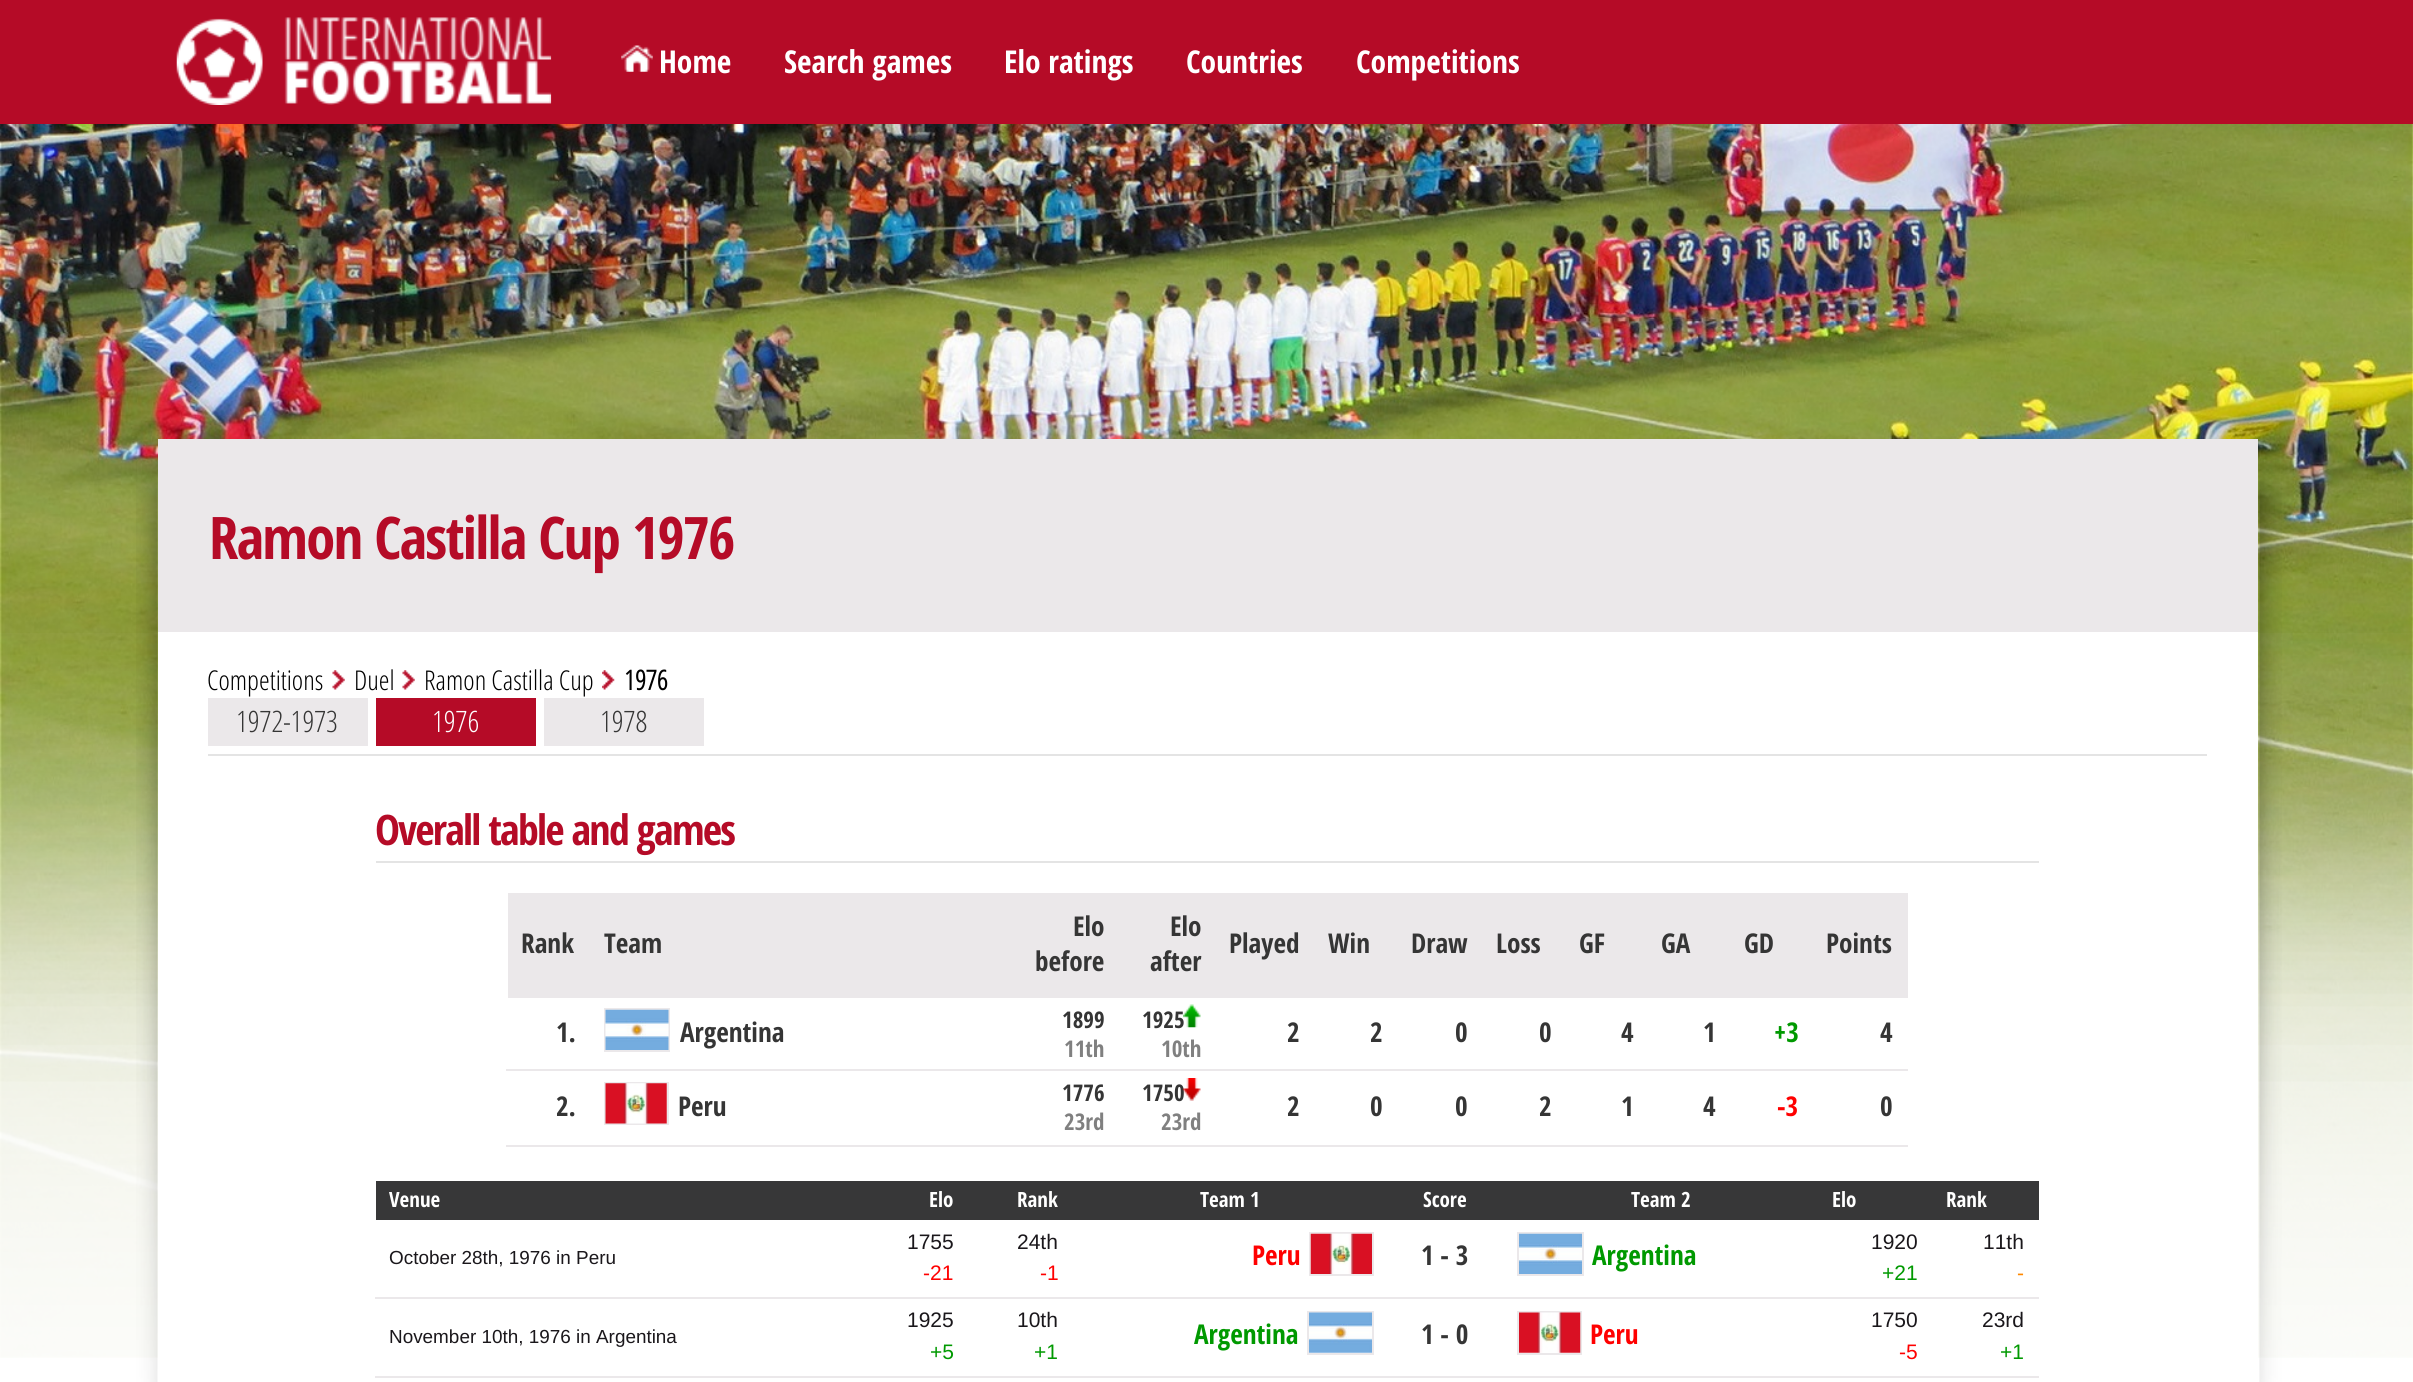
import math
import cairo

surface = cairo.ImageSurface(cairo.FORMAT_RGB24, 2413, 1382)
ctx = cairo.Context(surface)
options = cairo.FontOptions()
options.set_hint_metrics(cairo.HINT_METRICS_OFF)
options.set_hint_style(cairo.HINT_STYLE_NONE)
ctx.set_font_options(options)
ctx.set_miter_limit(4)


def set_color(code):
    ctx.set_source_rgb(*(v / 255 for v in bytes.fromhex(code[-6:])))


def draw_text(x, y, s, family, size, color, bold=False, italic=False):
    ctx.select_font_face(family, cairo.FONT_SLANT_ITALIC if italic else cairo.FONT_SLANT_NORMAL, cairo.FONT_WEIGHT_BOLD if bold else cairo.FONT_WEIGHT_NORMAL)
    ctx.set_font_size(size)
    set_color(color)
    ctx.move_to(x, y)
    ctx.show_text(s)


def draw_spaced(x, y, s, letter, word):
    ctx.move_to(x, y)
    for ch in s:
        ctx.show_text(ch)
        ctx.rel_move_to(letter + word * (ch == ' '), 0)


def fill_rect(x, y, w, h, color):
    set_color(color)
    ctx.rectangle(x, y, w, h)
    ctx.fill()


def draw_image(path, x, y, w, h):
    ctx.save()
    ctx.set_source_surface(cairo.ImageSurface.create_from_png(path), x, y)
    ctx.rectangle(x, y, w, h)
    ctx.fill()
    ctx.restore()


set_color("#ffffff")
ctx.paint()
fill_rect(0, 0, 2413, 124, "#b50b27")
draw_image("assets/img1.png", 176, 17, 376, 88)
draw_image("assets/img2.png", 621, 45, 32, 27)
draw_text(659, 73, "Home", "Open Sans Condensed", 31.5, "#ffffff", bold=True)
draw_text(784, 73, "Search games", "Open Sans Condensed", 31.5, "#ffffff", bold=True)
draw_text(1004, 73, "Elo ratings", "Open Sans Condensed", 31.5, "#ffffff", bold=True)
draw_text(1186, 73, "Countries", "Open Sans Condensed", 31.5, "#ffffff", bold=True)
draw_text(1356, 73, "Competitions", "Open Sans Condensed", 31.5, "#ffffff", bold=True)
draw_image("assets/img16.png", 0, 124, 2413, 1234)
draw_image("assets/img17.png", 0, 633, 2413, 725)
draw_image("assets/img3.png", 136, 456, 22, 926)
fill_rect(158, 632, 2100, 726, "#ffffff")
fill_rect(158, 439, 2100, 193, "#ebe8ea")
ctx.set_font_size(58.75)
set_color("#b50b27")
draw_spaced(209, 559, "Ramon Castilla Cup 1976", -1.75, 0)
draw_text(207, 690, "Competitions", "Open Sans Light", 27.25, "#000000")
draw_image("assets/img4.png", 332, 670, 13, 20)
draw_text(354, 690, "Duel", "Open Sans Light", 27.25, "#000000")
draw_image("assets/img5.png", 402, 670, 13, 20)
draw_text(424, 690, "Ramon Castilla Cup", "Open Sans Light", 27.25, "#000000")
draw_image("assets/img6.png", 602, 670, 13, 20)
draw_text(624, 690, "1976", "Open Sans", 27.25, "#000000", bold=True)
fill_rect(208, 698, 160, 48, "#ebe8ea")
draw_text(236, 732, "1972-1973", "Open Sans Light", 29.5, "#353535")
fill_rect(376, 698, 160, 48, "#b50b27")
draw_text(432, 732, "1976", "Open Sans Light", 29.5, "#ffffff")
fill_rect(544, 698, 160, 48, "#ebe8ea")
draw_text(600, 732, "1978", "Open Sans Light", 29.5, "#353535")
fill_rect(208, 754, 1999, 2, "#e4e4e4")
ctx.select_font_face("Open Sans Condensed", cairo.FONT_SLANT_NORMAL, cairo.FONT_WEIGHT_BOLD)
ctx.set_font_size(42)
set_color("#b50b27")
draw_spaced(375, 845, "Overall table and games", -1.75, 0)
fill_rect(376, 861, 1663, 2, "#e4e4e4")
fill_rect(508, 893, 1400, 105, "#ebe8ea")
draw_text(521, 953, "Rank", "Open Sans Condensed", 27.25, "#353535", bold=True)
draw_text(604, 953, "Team", "Open Sans Condensed", 27.25, "#353535", bold=True)
draw_text(1073, 936, "Elo", "Open Sans Condensed", 27.25, "#353535", bold=True)
draw_text(1035, 971, "before", "Open Sans Condensed", 27.25, "#353535", bold=True)
draw_text(1170, 936, "Elo", "Open Sans Condensed", 27.25, "#353535", bold=True)
draw_text(1150, 971, "after", "Open Sans Condensed", 27.25, "#353535", bold=True)
draw_text(1229, 953, "Played", "Open Sans Condensed", 27.25, "#353535", bold=True)
draw_text(1328, 953, "Win", "Open Sans Condensed", 27.25, "#353535", bold=True)
draw_text(1411, 953, "Draw", "Open Sans Condensed", 27.25, "#353535", bold=True)
draw_text(1496, 953, "Loss", "Open Sans Condensed", 27.25, "#353535", bold=True)
draw_text(1579, 953, "GF", "Open Sans Condensed", 27.25, "#353535", bold=True)
draw_text(1661, 953, "GA", "Open Sans Condensed", 27.25, "#353535", bold=True)
draw_text(1744, 953, "GD", "Open Sans Condensed", 27.25, "#353535", bold=True)
draw_text(1826, 953, "Points", "Open Sans Condensed", 27.25, "#353535", bold=True)
draw_text(556, 1042, "1.", "Open Sans Condensed", 27.25, "#353535", bold=True)
ctx.rectangle(605, 1009, 64, 42)
set_color("#ebe8ea")
ctx.stroke()
draw_image("assets/img7.png", 605, 1009, 64, 41)
draw_text(680, 1042, "Argentina", "Open Sans Condensed", 27.25, "#353535", bold=True)
draw_text(1062, 1028, "1899", "Open Sans Condensed", 23, "#353535", bold=True)
draw_text(1064, 1057, "11th", "Open Sans Condensed", 23, "#808080", bold=True)
draw_text(1142, 1028, "1925", "Open Sans Condensed", 23, "#353535", bold=True)
draw_image("assets/img8.png", 1183, 1004, 18, 24)
draw_text(1161, 1057, "10th", "Open Sans Condensed", 23, "#808080", bold=True)
draw_text(1287, 1042, "2", "Open Sans Condensed", 27.25, "#353535", bold=True)
draw_text(1370, 1042, "2", "Open Sans Condensed", 27.25, "#353535", bold=True)
draw_text(1455, 1042, "0", "Open Sans Condensed", 27.25, "#353535", bold=True)
draw_text(1539, 1042, "0", "Open Sans Condensed", 27.25, "#353535", bold=True)
draw_text(1621, 1042, "4", "Open Sans Condensed", 27.25, "#353535", bold=True)
draw_text(1703, 1042, "1", "Open Sans Condensed", 27.25, "#353535", bold=True)
draw_text(1774, 1042, "+3", "Open Sans Condensed", 27.25, "#009900", bold=True)
fill_rect(506, 1069, 1402, 2, "#ebe8ea")
draw_text(1880, 1042, "4", "Open Sans Condensed", 27.25, "#353535", bold=True)
draw_text(556, 1116, "2.", "Open Sans Condensed", 27.25, "#353535", bold=True)
ctx.rectangle(605, 1083, 63, 41)
set_color("#ebe8ea")
ctx.stroke()
draw_image("assets/img9.png", 605, 1083, 62, 41)
draw_text(678, 1116, "Peru", "Open Sans Condensed", 27.25, "#353535", bold=True)
draw_text(1062, 1101, "1776", "Open Sans Condensed", 23, "#353535", bold=True)
draw_text(1064, 1130, "23rd", "Open Sans Condensed", 23, "#808080", bold=True)
draw_text(1142, 1101, "1750", "Open Sans Condensed", 23, "#353535", bold=True)
draw_image("assets/img10.png", 1183, 1078, 18, 23)
draw_text(1161, 1130, "23rd", "Open Sans Condensed", 23, "#808080", bold=True)
draw_text(1287, 1116, "2", "Open Sans Condensed", 27.25, "#353535", bold=True)
draw_text(1370, 1116, "0", "Open Sans Condensed", 27.25, "#353535", bold=True)
draw_text(1455, 1116, "0", "Open Sans Condensed", 27.25, "#353535", bold=True)
draw_text(1539, 1116, "2", "Open Sans Condensed", 27.25, "#353535", bold=True)
draw_text(1621, 1116, "1", "Open Sans Condensed", 27.25, "#353535", bold=True)
draw_text(1703, 1116, "4", "Open Sans Condensed", 27.25, "#353535", bold=True)
draw_text(1777, 1116, "-3", "Open Sans Condensed", 27.25, "#ff0000", bold=True)
fill_rect(506, 1145, 1402, 2, "#ebe8ea")
draw_text(1880, 1116, "0", "Open Sans Condensed", 27.25, "#353535", bold=True)
fill_rect(376, 1181, 1663, 39, "#373738")
draw_text(389, 1207, "Venue", "Open Sans Condensed", 21, "#ffffff", bold=True)
draw_text(929, 1207, "Elo", "Open Sans Condensed", 21, "#ffffff", bold=True)
draw_text(1017, 1207, "Rank", "Open Sans Condensed", 21, "#ffffff", bold=True)
draw_text(1200, 1207, "Team 1", "Open Sans Condensed", 21, "#ffffff", bold=True)
draw_text(1423, 1207, "Score", "Open Sans Condensed", 21, "#ffffff", bold=True)
draw_text(1631, 1207, "Team 2", "Open Sans Condensed", 21, "#ffffff", bold=True)
draw_text(1832, 1207, "Elo", "Open Sans Condensed", 21, "#ffffff", bold=True)
draw_text(1946, 1207, "Rank", "Open Sans Condensed", 21, "#ffffff", bold=True)
draw_text(389, 1264, "October 28th, 1976 in Peru", "Liberation Sans", 18.9, "#1a171b")
draw_text(907, 1249, "1755", "Liberation Sans", 21, "#1a171b")
draw_text(923, 1280, "-21", "Liberation Sans", 21, "#ff0000")
draw_text(1017, 1249, "24th", "Liberation Sans", 21, "#1a171b")
draw_text(1040, 1280, "-1", "Liberation Sans", 21, "#ff0000")
draw_text(1252, 1265, "Peru", "Open Sans Condensed", 27.25, "#ff0000", bold=True)
ctx.rectangle(1310, 1233, 63, 42)
set_color("#ebe8ea")
ctx.stroke()
draw_image("assets/img11.png", 1310, 1233, 62, 41)
draw_text(1421, 1265, "1 - 3", "Open Sans Condensed", 27.25, "#353535", bold=True)
ctx.rectangle(1518, 1233, 65, 42)
set_color("#ebe8ea")
ctx.stroke()
draw_image("assets/img12.png", 1519, 1233, 63, 41)
draw_text(1592, 1265, "Argentina", "Open Sans Condensed", 27.25, "#009900", bold=True)
draw_text(1871, 1249, "1920", "Liberation Sans", 21, "#1a171b")
draw_text(1882, 1280, "+21", "Liberation Sans", 21, "#009900")
fill_rect(375, 1297, 1664, 2, "#ebe8ea")
draw_text(1983, 1249, "11th", "Liberation Sans", 21, "#1a171b")
draw_text(2017, 1280, "-", "Liberation Sans", 21, "#ff8800")
draw_text(389, 1343, "November 10th, 1976 in Argentina", "Liberation Sans", 18.9, "#1a171b")
draw_text(907, 1327, "1925", "Liberation Sans", 21, "#1a171b")
draw_text(930, 1359, "+5", "Liberation Sans", 21, "#009900")
draw_text(1017, 1327, "10th", "Liberation Sans", 21, "#1a171b")
draw_text(1034, 1359, "+1", "Liberation Sans", 21, "#009900")
draw_text(1194, 1344, "Argentina", "Open Sans Condensed", 27.25, "#009900", bold=True)
ctx.rectangle(1308, 1312, 65, 42)
set_color("#ebe8ea")
ctx.stroke()
draw_image("assets/img13.png", 1309, 1312, 63, 41)
draw_text(1421, 1344, "1 - 0", "Open Sans Condensed", 27.25, "#353535", bold=True)
ctx.rectangle(1518, 1312, 63, 42)
set_color("#ebe8ea")
ctx.stroke()
draw_image("assets/img14.png", 1519, 1312, 62, 41)
draw_text(1590, 1344, "Peru", "Open Sans Condensed", 27.25, "#ff0000", bold=True)
draw_text(1871, 1327, "1750", "Liberation Sans", 21, "#1a171b")
draw_text(1899, 1359, "-5", "Liberation Sans", 21, "#ff0000")
fill_rect(375, 1376, 1664, 2, "#ebe8ea")
draw_text(1982, 1327, "23rd", "Liberation Sans", 21, "#1a171b")
draw_text(2000, 1359, "+1", "Liberation Sans", 21, "#009900")
draw_image("assets/img15.png", 2259, 458, 23, 924)
surface.write_to_png("output.png")
